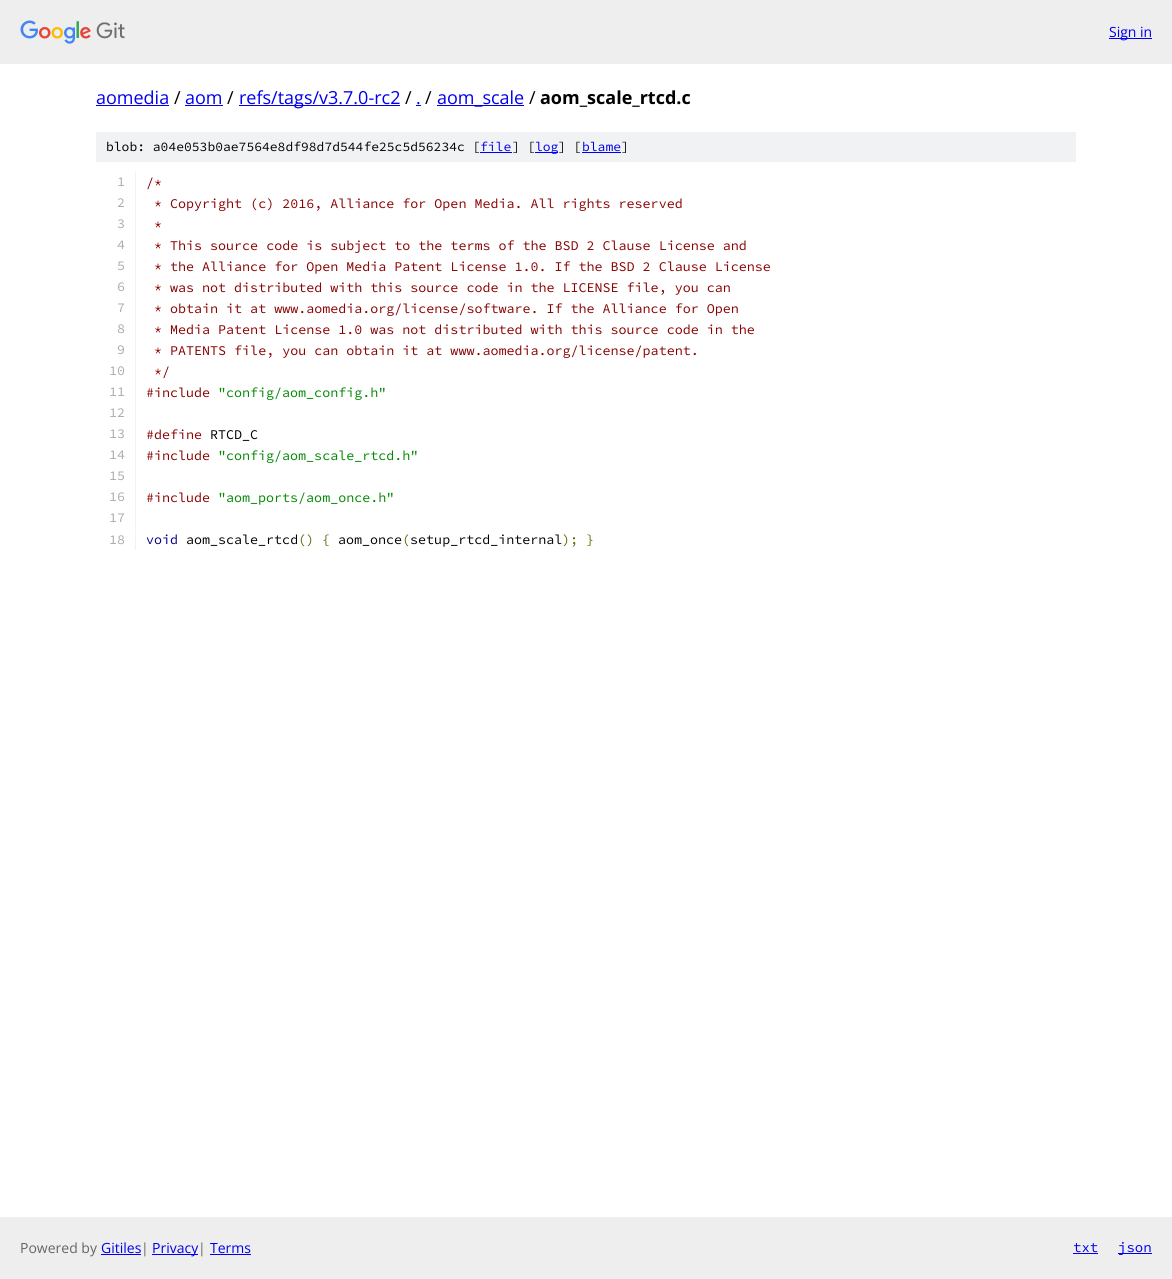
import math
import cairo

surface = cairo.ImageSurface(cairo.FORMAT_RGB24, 1172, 1279)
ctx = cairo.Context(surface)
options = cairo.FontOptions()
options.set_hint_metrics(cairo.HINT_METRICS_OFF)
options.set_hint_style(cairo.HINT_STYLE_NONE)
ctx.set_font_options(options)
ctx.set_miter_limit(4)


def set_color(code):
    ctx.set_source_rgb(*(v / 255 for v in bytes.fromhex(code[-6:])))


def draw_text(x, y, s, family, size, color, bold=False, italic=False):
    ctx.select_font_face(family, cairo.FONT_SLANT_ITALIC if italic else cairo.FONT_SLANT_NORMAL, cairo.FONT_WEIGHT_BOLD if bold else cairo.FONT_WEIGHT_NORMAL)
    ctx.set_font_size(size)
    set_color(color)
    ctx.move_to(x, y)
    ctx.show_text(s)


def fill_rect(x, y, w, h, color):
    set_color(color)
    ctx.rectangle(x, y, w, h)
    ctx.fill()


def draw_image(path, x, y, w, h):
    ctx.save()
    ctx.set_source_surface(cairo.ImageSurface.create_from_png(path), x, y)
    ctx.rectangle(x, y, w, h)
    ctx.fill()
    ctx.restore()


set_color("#ffffff")
ctx.paint()
fill_rect(0, 0, 1172, 64, "#eeeeee")
draw_image("assets/img1.png", 20, 20, 105, 24)
fill_rect(1109, 38, 43, 1, "#0000ee")
draw_text(1109, 37, "Sign in", "Open Sans", 14, "#0000ee")
draw_text(96, 104, "aomedia", "Open Sans", 18, "#0000ee")
fill_rect(96, 105, 73, 1, "#0000ee")
draw_text(174, 104, "/", "Open Sans", 18, "#000000")
draw_text(185, 104, "aom", "Open Sans", 18, "#0000ee")
fill_rect(185, 105, 38, 1, "#0000ee")
draw_text(227, 104, "/", "Open Sans", 18, "#000000")
fill_rect(239, 105, 161, 1, "#0000ee")
draw_text(239, 104, "refs/tags/v3.7.0-rc2", "Open Sans", 18, "#0000ee")
draw_text(405, 104, "/", "Open Sans", 18, "#000000")
draw_text(416, 104, ".", "Open Sans", 18, "#0000ee")
fill_rect(416, 105, 5, 1, "#0000ee")
draw_text(425, 104, "/", "Open Sans", 18, "#000000")
fill_rect(437, 105, 87, 1, "#0000ee")
draw_text(437, 104, "aom_scale", "Open Sans", 18, "#0000ee")
draw_text(529, 104, "/", "Open Sans", 18, "#000000")
draw_text(540, 104, "aom_scale_rtcd.c", "Open Sans", 18, "#000000", bold=True)
fill_rect(96, 132, 980, 30, "#f1f2f3")
draw_text(106, 151, "blob: a04e053b0ae7564e8df98d7d544fe25c5d56234c [", "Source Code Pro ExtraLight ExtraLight", 13, "#000000")
draw_text(480, 151, "file", "Source Code Pro ExtraLight ExtraLight", 13, "#0000ee")
fill_rect(480, 152, 32, 1, "#0000ee")
draw_text(512, 151, "] [", "Source Code Pro ExtraLight ExtraLight", 13, "#000000")
fill_rect(535, 152, 23, 1, "#0000ee")
draw_text(535, 151, "log", "Source Code Pro ExtraLight ExtraLight", 13, "#0000ee")
draw_text(558, 151, "] [", "Source Code Pro ExtraLight ExtraLight", 13, "#000000")
draw_text(582, 151, "blame", "Source Code Pro ExtraLight ExtraLight", 13, "#0000ee")
fill_rect(582, 152, 39, 1, "#0000ee")
draw_text(621, 151, "]", "Source Code Pro ExtraLight ExtraLight", 13, "#000000")
fill_rect(135, 172, 1, 357, "#f1f2f3")
draw_text(117, 186, "1", "Source Code Pro ExtraLight ExtraLight", 13.35, "#aaaaaa")
draw_text(146, 187, "/*", "Source Code Pro ExtraLight ExtraLight", 13.35, "#880000")
draw_text(117, 207, "2", "Source Code Pro ExtraLight ExtraLight", 13.35, "#aaaaaa")
draw_text(154, 208, "* Copyright (c) 2016, Alliance for Open Media. All rights reserved", "Source Code Pro ExtraLight ExtraLight", 13.35, "#880000")
draw_text(117, 228, "3", "Source Code Pro ExtraLight ExtraLight", 13.35, "#aaaaaa")
draw_text(154, 229, "*", "Source Code Pro ExtraLight ExtraLight", 13.35, "#880000")
draw_text(117, 249, "4", "Source Code Pro ExtraLight ExtraLight", 13.35, "#aaaaaa")
draw_text(154, 250, "* This source code is subject to the terms of the BSD 2 Clause License and", "Source Code Pro ExtraLight ExtraLight", 13.35, "#880000")
draw_text(117, 270, "5", "Source Code Pro ExtraLight ExtraLight", 13.35, "#aaaaaa")
draw_text(154, 271, "* the Alliance for Open Media Patent License 1.0. If the BSD 2 Clause License", "Source Code Pro ExtraLight ExtraLight", 13.35, "#880000")
draw_text(117, 291, "6", "Source Code Pro ExtraLight ExtraLight", 13.35, "#aaaaaa")
draw_text(154, 292, "* was not distributed with this source code in the LICENSE file, you can", "Source Code Pro ExtraLight ExtraLight", 13.35, "#880000")
draw_text(117, 312, "7", "Source Code Pro ExtraLight ExtraLight", 13.35, "#aaaaaa")
draw_text(154, 313, "* obtain it at www.aomedia.org/license/software. If the Alliance for Open", "Source Code Pro ExtraLight ExtraLight", 13.35, "#880000")
draw_text(117, 333, "8", "Source Code Pro ExtraLight ExtraLight", 13.35, "#aaaaaa")
draw_text(154, 334, "* Media Patent License 1.0 was not distributed with this source code in the", "Source Code Pro ExtraLight ExtraLight", 13.35, "#880000")
draw_text(117, 354, "9", "Source Code Pro ExtraLight ExtraLight", 13.35, "#aaaaaa")
draw_text(154, 355, "* PATENTS file, you can obtain it at www.aomedia.org/license/patent.", "Source Code Pro ExtraLight ExtraLight", 13.35, "#880000")
draw_text(109, 375, "10", "Source Code Pro ExtraLight ExtraLight", 13.35, "#aaaaaa")
draw_text(154, 376, "*/", "Source Code Pro ExtraLight ExtraLight", 13.35, "#880000")
draw_text(109, 396, "11", "Source Code Pro ExtraLight ExtraLight", 13.35, "#aaaaaa")
draw_text(146, 397, "#include", "Source Code Pro ExtraLight ExtraLight", 13.35, "#880000")
draw_text(218, 397, "\"config/aom_config.h\"", "Source Code Pro ExtraLight ExtraLight", 13.35, "#008800")
draw_text(109, 417, "12", "Source Code Pro ExtraLight ExtraLight", 13.35, "#aaaaaa")
draw_text(109, 438, "13", "Source Code Pro ExtraLight ExtraLight", 13.35, "#aaaaaa")
draw_text(146, 439, "#define", "Source Code Pro ExtraLight ExtraLight", 13.35, "#880000")
draw_text(210, 439, "RTCD_C", "Source Code Pro ExtraLight ExtraLight", 13.35, "#000000")
draw_text(109, 459, "14", "Source Code Pro ExtraLight ExtraLight", 13.35, "#aaaaaa")
draw_text(146, 460, "#include", "Source Code Pro ExtraLight ExtraLight", 13.35, "#880000")
draw_text(218, 460, "\"config/aom_scale_rtcd.h\"", "Source Code Pro ExtraLight ExtraLight", 13.35, "#008800")
draw_text(109, 480, "15", "Source Code Pro ExtraLight ExtraLight", 13.35, "#aaaaaa")
draw_text(109, 501, "16", "Source Code Pro ExtraLight ExtraLight", 13.35, "#aaaaaa")
draw_text(146, 502, "#include", "Source Code Pro ExtraLight ExtraLight", 13.35, "#880000")
draw_text(218, 502, "\"aom_ports/aom_once.h\"", "Source Code Pro ExtraLight ExtraLight", 13.35, "#008800")
draw_text(109, 522, "17", "Source Code Pro ExtraLight ExtraLight", 13.35, "#aaaaaa")
fill_rect(135, 530, 1, 20, "#f1f2f3")
draw_text(109, 544, "18", "Source Code Pro ExtraLight ExtraLight", 13.35, "#aaaaaa")
draw_text(146, 544, "void", "Source Code Pro ExtraLight ExtraLight", 13.35, "#000088")
draw_text(186, 544, "aom_scale_rtcd", "Source Code Pro ExtraLight ExtraLight", 13.35, "#000000")
draw_text(298, 544, "() {", "Source Code Pro ExtraLight ExtraLight", 13.35, "#666600")
draw_text(338, 544, "aom_once setup_rtcd_internal", "Source Code Pro ExtraLight ExtraLight", 13.35, "#000000")
draw_text(402, 544, "(", "Source Code Pro ExtraLight ExtraLight", 13.35, "#666600")
draw_text(562, 544, "); }", "Source Code Pro ExtraLight ExtraLight", 13.35, "#666600")
fill_rect(0, 1217, 1172, 62, "#eeeeee")
draw_text(20, 1253, "Powered by", "Open Sans", 14, "#666666")
draw_text(101, 1253, "Gitiles", "Open Sans", 14, "#0000ee")
fill_rect(101, 1254, 40, 1, "#0000ee")
draw_text(141, 1253, "|", "Open Sans", 14, "#666666")
fill_rect(152, 1254, 46, 1, "#0000ee")
draw_text(152, 1253, "Privacy", "Open Sans", 14, "#0000ee")
draw_text(198, 1253, "|", "Open Sans", 14, "#666666")
draw_text(210, 1253, "Terms", "Open Sans", 14, "#0000ee")
fill_rect(210, 1254, 41, 1, "#0000ee")
draw_text(1073, 1252, "txt", "Source Code Pro ExtraLight ExtraLight", 14, "#0000ee")
fill_rect(1073, 1253, 25, 1, "#0000ee")
fill_rect(1118, 1253, 34, 1, "#0000ee")
draw_text(1118, 1252, "json", "Source Code Pro ExtraLight ExtraLight", 14, "#0000ee")
surface.write_to_png("output.png")
